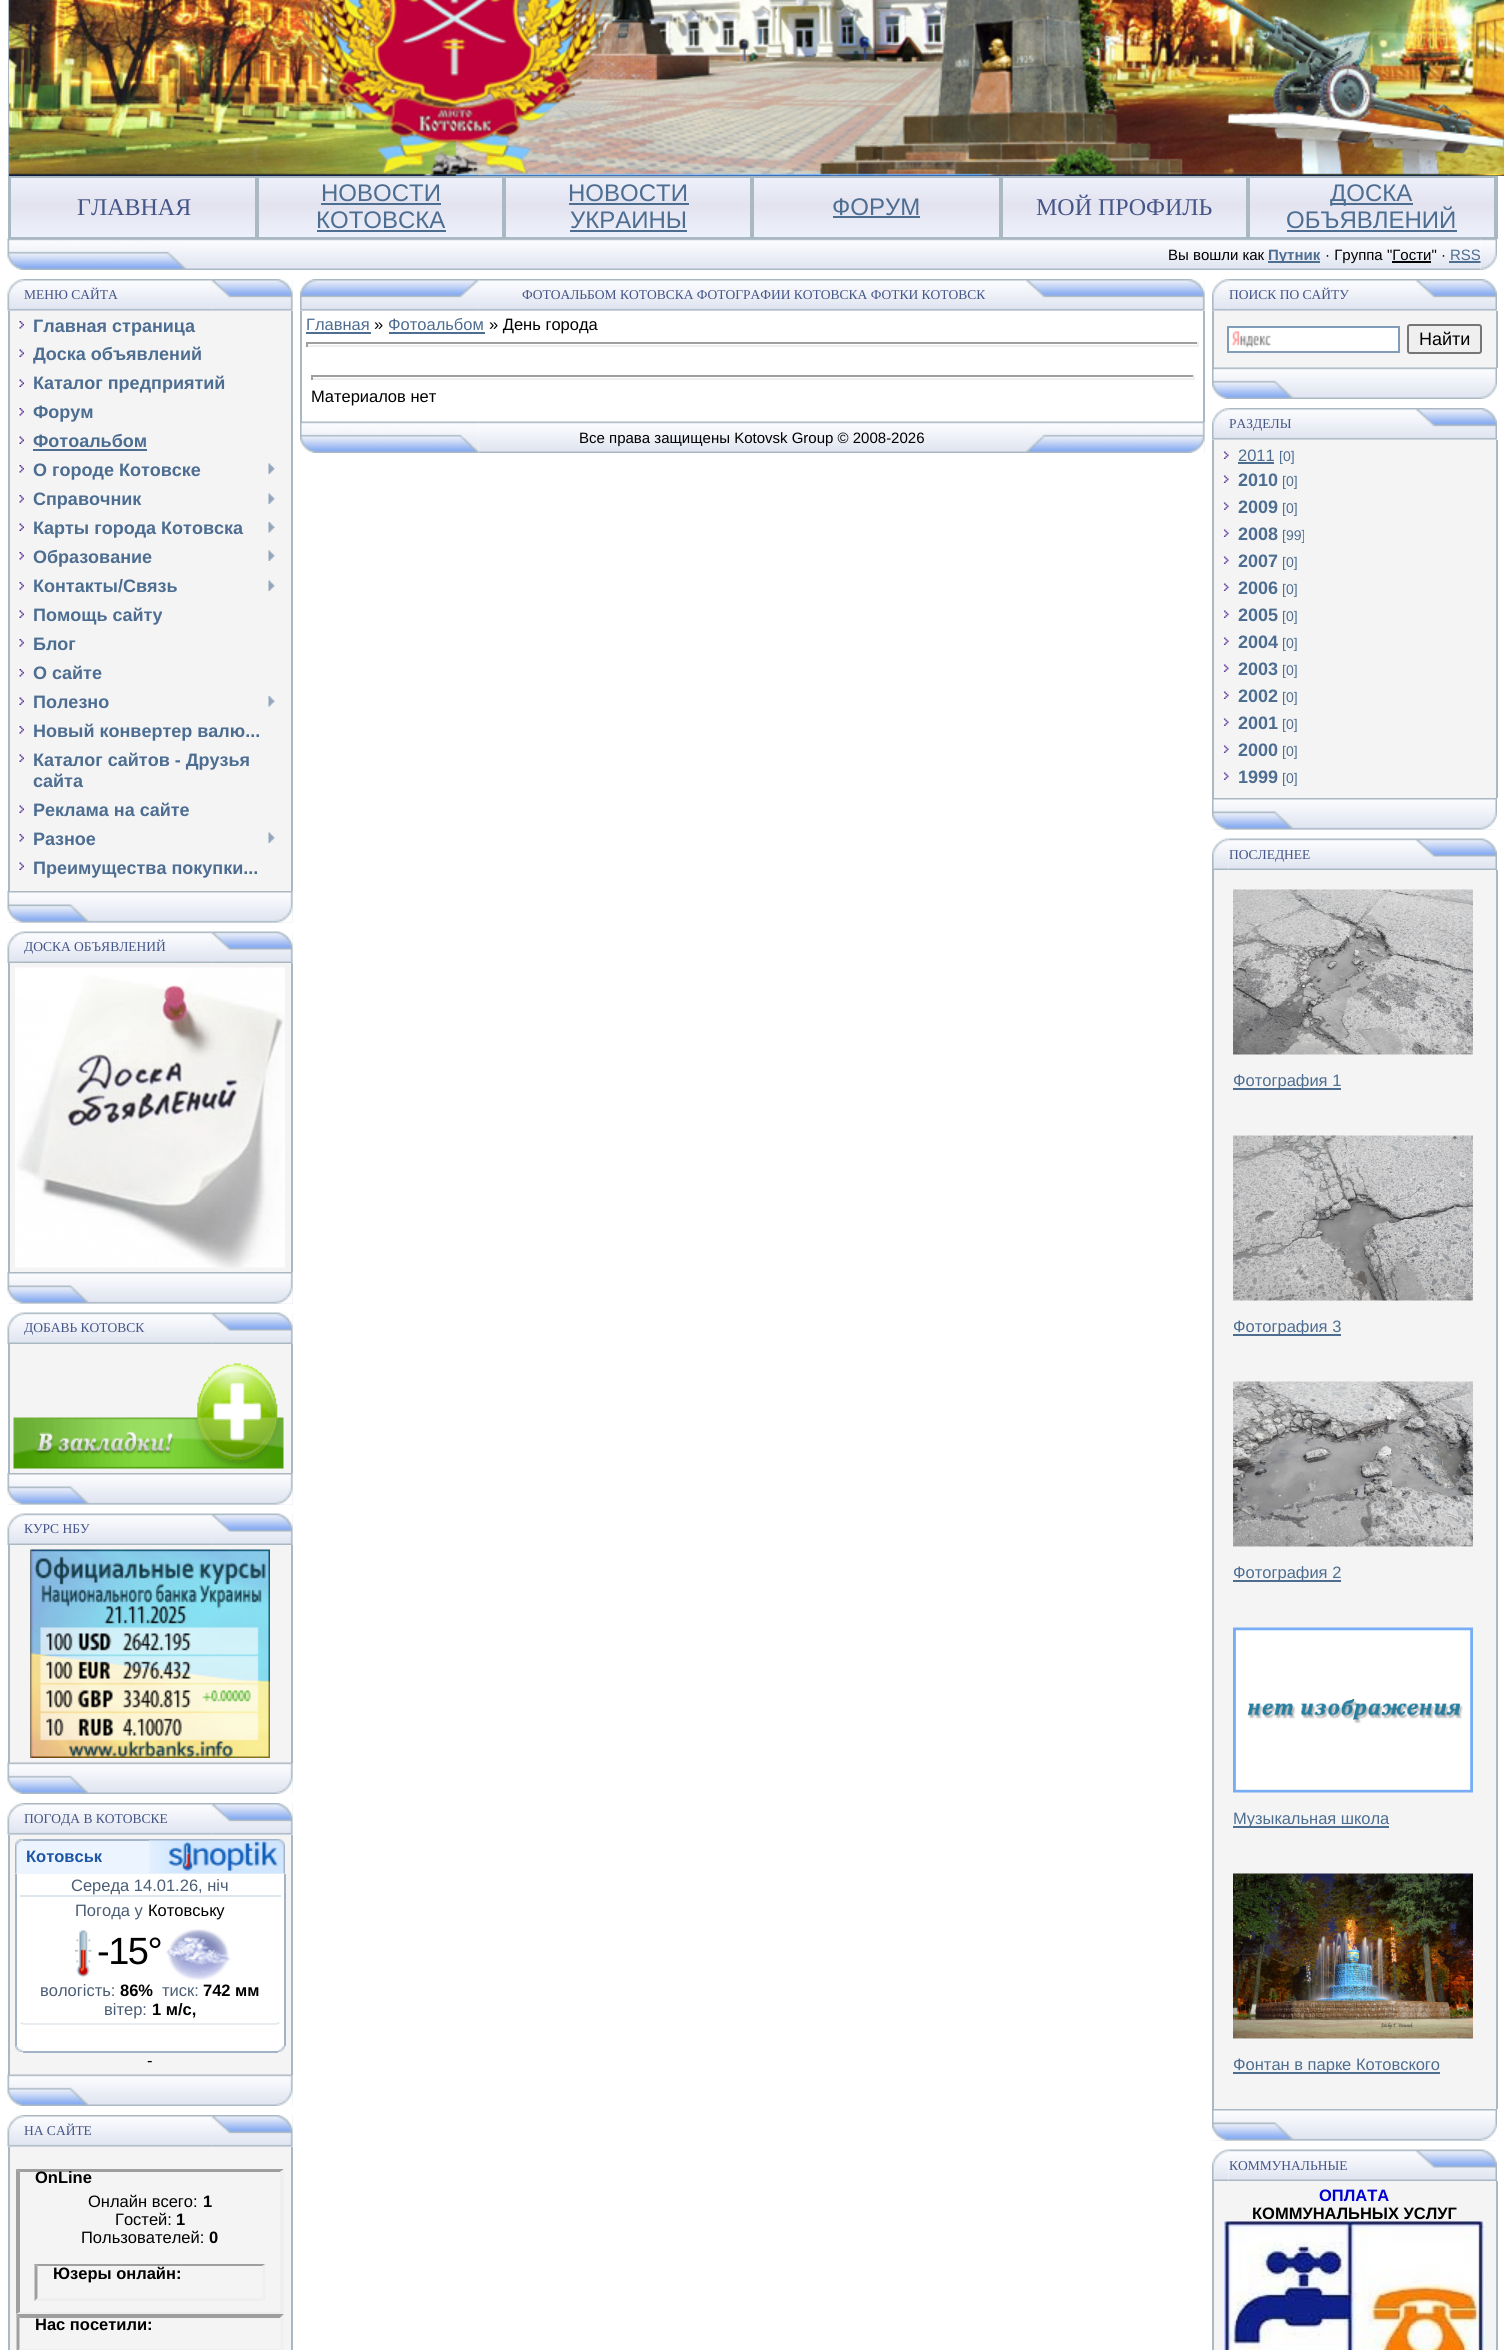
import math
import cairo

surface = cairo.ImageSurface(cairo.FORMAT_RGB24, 1504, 2350)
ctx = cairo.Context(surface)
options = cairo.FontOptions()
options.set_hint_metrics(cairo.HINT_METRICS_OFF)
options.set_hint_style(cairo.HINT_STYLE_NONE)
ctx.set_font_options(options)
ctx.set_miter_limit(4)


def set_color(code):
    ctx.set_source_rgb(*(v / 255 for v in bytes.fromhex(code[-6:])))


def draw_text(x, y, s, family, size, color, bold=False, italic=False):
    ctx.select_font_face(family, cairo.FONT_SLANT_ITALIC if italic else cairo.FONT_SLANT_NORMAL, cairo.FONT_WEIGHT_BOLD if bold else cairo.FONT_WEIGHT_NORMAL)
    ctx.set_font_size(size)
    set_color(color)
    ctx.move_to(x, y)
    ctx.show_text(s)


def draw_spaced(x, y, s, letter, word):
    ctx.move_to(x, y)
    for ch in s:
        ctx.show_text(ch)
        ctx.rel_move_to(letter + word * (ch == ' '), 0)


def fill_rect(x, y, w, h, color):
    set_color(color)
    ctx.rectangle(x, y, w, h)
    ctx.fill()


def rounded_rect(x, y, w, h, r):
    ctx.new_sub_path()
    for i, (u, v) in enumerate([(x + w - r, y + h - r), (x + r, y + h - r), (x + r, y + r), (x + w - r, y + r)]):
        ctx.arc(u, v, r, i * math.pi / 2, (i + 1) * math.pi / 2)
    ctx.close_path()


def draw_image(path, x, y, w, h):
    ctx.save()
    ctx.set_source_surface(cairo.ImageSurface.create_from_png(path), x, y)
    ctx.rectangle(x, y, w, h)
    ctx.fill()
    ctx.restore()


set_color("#ffffff")
ctx.paint()
fill_rect(8, 0, 1, 239, "#a9b8c2")
fill_rect(9, 175, 1495, 1, "#03276e")
draw_image("assets/img1.png", 9, 0, 1495, 176)
fill_rect(1496, 176, 2, 63, "#a9b8c2")
gradient = cairo.LinearGradient(133, 177, 133, 237)
gradient.add_color_stop_rgba(0, 0.929, 0.945, 0.988, 1)
gradient.add_color_stop_rgba(0.47, 0.89, 0.89, 0.937, 1)
gradient.add_color_stop_rgba(1, 0.929, 0.945, 0.988, 1)
ctx.set_source(gradient)
ctx.rectangle(11, 178, 244, 59)
ctx.fill()
ctx.rectangle(10, 177, 246, 61)
set_color("#a9b8c2")
ctx.stroke()
draw_text(77, 215, "ГЛАВНАЯ", "Liberation Serif", 24, "#445588")
gradient = cairo.LinearGradient(380, 177, 380, 237)
gradient.add_color_stop_rgba(0, 0.929, 0.945, 0.988, 1)
gradient.add_color_stop_rgba(0.47, 0.89, 0.89, 0.937, 1)
gradient.add_color_stop_rgba(1, 0.929, 0.945, 0.988, 1)
ctx.set_source(gradient)
ctx.rectangle(259, 178, 243, 59)
ctx.fill()
ctx.rectangle(258, 177, 245, 61)
set_color("#a9b8c2")
ctx.stroke()
draw_text(321, 201, "НОВОСТИ", "Liberation Sans", 24, "#4d6d91")
fill_rect(321, 203, 120, 2, "#4d6d91")
draw_text(316, 228, "КОТОВСКА", "Liberation Sans", 24, "#4d6d91")
fill_rect(317, 230, 129, 2, "#4d6d91")
gradient = cairo.LinearGradient(628, 177, 628, 237)
gradient.add_color_stop_rgba(0, 0.929, 0.945, 0.988, 1)
gradient.add_color_stop_rgba(0.47, 0.89, 0.89, 0.937, 1)
gradient.add_color_stop_rgba(1, 0.929, 0.945, 0.988, 1)
ctx.set_source(gradient)
ctx.rectangle(506, 178, 244, 59)
ctx.fill()
ctx.rectangle(505, 177, 246, 61)
set_color("#a9b8c2")
ctx.stroke()
draw_text(568, 201, "НОВОСТИ", "Liberation Sans", 24, "#4d6d91")
fill_rect(569, 203, 120, 2, "#4d6d91")
draw_text(570, 228, "УКРАИНЫ", "Liberation Sans", 24, "#4d6d91")
fill_rect(570, 230, 117, 2, "#4d6d91")
gradient = cairo.LinearGradient(876, 177, 876, 237)
gradient.add_color_stop_rgba(0, 0.929, 0.945, 0.988, 1)
gradient.add_color_stop_rgba(0.47, 0.89, 0.89, 0.937, 1)
gradient.add_color_stop_rgba(1, 0.929, 0.945, 0.988, 1)
ctx.set_source(gradient)
ctx.rectangle(754, 178, 245, 59)
ctx.fill()
ctx.rectangle(753, 177, 247, 61)
set_color("#a9b8c2")
ctx.stroke()
draw_text(832, 215, "ФОРУМ", "Liberation Sans", 24, "#4d6d91")
fill_rect(833, 216, 87, 2, "#4d6d91")
gradient = cairo.LinearGradient(1124, 177, 1124, 237)
gradient.add_color_stop_rgba(0, 0.929, 0.945, 0.988, 1)
gradient.add_color_stop_rgba(0.47, 0.89, 0.89, 0.937, 1)
gradient.add_color_stop_rgba(1, 0.929, 0.945, 0.988, 1)
ctx.set_source(gradient)
ctx.rectangle(1003, 178, 243, 59)
ctx.fill()
ctx.rectangle(1002, 177, 245, 61)
set_color("#a9b8c2")
ctx.stroke()
draw_text(1036, 215, "МОЙ ПРОФИЛЬ", "Liberation Serif", 24, "#445588")
gradient = cairo.LinearGradient(1372, 177, 1372, 237)
gradient.add_color_stop_rgba(0, 0.929, 0.945, 0.988, 1)
gradient.add_color_stop_rgba(0.47, 0.89, 0.89, 0.937, 1)
gradient.add_color_stop_rgba(1, 0.929, 0.945, 0.988, 1)
ctx.set_source(gradient)
ctx.rectangle(1250, 178, 244, 59)
ctx.fill()
ctx.rectangle(1249, 177, 246, 61)
set_color("#a9b8c2")
ctx.stroke()
fill_rect(1331, 203, 82, 2, "#4d6d91")
draw_text(1330, 201, "ДОСКА", "Liberation Sans", 24, "#4d6d91")
draw_text(1286, 228, "ОБЪЯВЛЕНИЙ", "Liberation Sans", 24, "#4d6d91")
fill_rect(1287, 230, 170, 2, "#4d6d91")
draw_image("assets/img2.png", 7, 238, 179, 32)
draw_image("assets/img3.png", 186, 239, 1295, 31)
draw_text(1168, 260, "Вы вошли как", "Liberation Sans", 15, "#000000")
fill_rect(1268, 261, 52, 2, "#4d6d91")
draw_text(1268, 260, "Путник", "Liberation Sans", 15, "#4d6d91", bold=True)
draw_text(1325, 260, "· Группа \"Гости\" ·", "Liberation Sans", 15, "#000000")
draw_text(1450, 260, "RSS", "Liberation Sans", 15, "#4d6d91")
fill_rect(1449, 261, 32, 2, "#4d6d91")
fill_rect(1392, 261, 39, 2, "#000000")
draw_image("assets/img4.png", 1480, 239, 17, 31)
fill_rect(8, 279, 285, 32, "#e9ecf5")
draw_image("assets/img5.png", 7, 279, 17, 32)
draw_image("assets/img6.png", 24, 279, 188, 32)
draw_text(24, 299, "МЕНЮ САЙТА", "Liberation Serif", 13.5, "#445588")
draw_image("assets/img7.png", 211, 279, 82, 32)
fill_rect(10, 311, 281, 580, "#f4f4f4")
fill_rect(291, 311, 2, 580, "#a9b8c2")
fill_rect(8, 311, 2, 580, "#a9b8c2")
draw_image("assets/img8.png", 18, 321, 6, 8)
draw_text(33, 332, "Главная страница", "Liberation Sans", 18, "#4d6d91", bold=True)
draw_image("assets/img9.png", 18, 349, 6, 8)
draw_text(33, 360, "Доска объявлений", "Liberation Sans", 18, "#4d6d91", bold=True)
draw_image("assets/img9.png", 18, 379, 6, 8)
draw_text(33, 389, "Каталог предприятий", "Liberation Sans", 18, "#4d6d91", bold=True)
draw_image("assets/img8.png", 18, 408, 6, 8)
draw_text(33, 418, "Форум", "Liberation Sans", 18, "#4d6d91", bold=True)
draw_image("assets/img9.png", 18, 436, 6, 8)
draw_text(33, 447, "Фотоальбом", "Liberation Sans", 18, "#4d6d91", bold=True)
fill_rect(33, 449, 114, 2, "#4d6d91")
draw_image("assets/img8.png", 18, 465, 6, 8)
draw_text(33, 476, "О городе Котовске", "Liberation Sans", 18, "#4d6d91", bold=True)
draw_image("assets/img10.png", 268, 463, 7, 11)
draw_image("assets/img8.png", 18, 495, 6, 8)
draw_text(33, 505, "Справочник", "Liberation Sans", 18, "#4d6d91", bold=True)
draw_image("assets/img10.png", 268, 493, 7, 11)
draw_image("assets/img9.png", 18, 523, 6, 8)
draw_text(33, 534, "Карты города Котовска", "Liberation Sans", 18, "#4d6d91", bold=True)
draw_image("assets/img11.png", 268, 522, 7, 11)
draw_image("assets/img8.png", 18, 552, 6, 8)
draw_text(33, 563, "Образование", "Liberation Sans", 18, "#4d6d91", bold=True)
draw_image("assets/img10.png", 268, 550, 7, 11)
draw_image("assets/img8.png", 18, 582, 6, 8)
draw_text(33, 592, "Контакты/Связь", "Liberation Sans", 18, "#4d6d91", bold=True)
draw_image("assets/img10.png", 268, 580, 7, 11)
draw_image("assets/img9.png", 18, 610, 6, 8)
draw_text(33, 621, "Помощь сайту", "Liberation Sans", 18, "#4d6d91", bold=True)
draw_image("assets/img8.png", 18, 639, 6, 8)
draw_text(33, 650, "Блог", "Liberation Sans", 18, "#4d6d91", bold=True)
draw_image("assets/img8.png", 18, 669, 6, 8)
draw_text(33, 679, "О сайте", "Liberation Sans", 18, "#4d6d91", bold=True)
draw_image("assets/img9.png", 18, 697, 6, 8)
draw_text(33, 708, "Полезно", "Liberation Sans", 18, "#4d6d91", bold=True)
draw_image("assets/img11.png", 268, 696, 7, 11)
draw_image("assets/img8.png", 18, 726, 6, 8)
draw_text(33, 737, "Новый конвертер валю...", "Liberation Sans", 18, "#4d6d91", bold=True)
draw_image("assets/img9.png", 18, 754, 6, 8)
draw_text(33, 766, "Каталог сайтов - Друзья", "Liberation Sans", 18, "#4d6d91", bold=True)
draw_text(33, 787, "сайта", "Liberation Sans", 18, "#4d6d91", bold=True)
draw_image("assets/img9.png", 18, 805, 6, 8)
draw_text(33, 816, "Реклама на сайте", "Liberation Sans", 18, "#4d6d91", bold=True)
draw_image("assets/img8.png", 18, 834, 6, 8)
draw_text(33, 845, "Разное", "Liberation Sans", 18, "#4d6d91", bold=True)
draw_image("assets/img10.png", 268, 832, 7, 11)
draw_image("assets/img9.png", 18, 862, 6, 8)
draw_text(33, 874, "Преимущества покупки...", "Liberation Sans", 18, "#4d6d91", bold=True)
fill_rect(8, 891, 285, 32, "#e9ecf5")
draw_image("assets/img12.png", 7, 891, 286, 32)
fill_rect(211, 932, 82, 31, "#e9ecf5")
draw_image("assets/img13.png", 7, 931, 17, 32)
draw_image("assets/img14.png", 24, 931, 188, 32)
draw_text(24, 951, "ДОСКА ОБЪЯВЛЕНИЙ", "Liberation Serif", 13.5, "#445588")
draw_image("assets/img15.png", 211, 931, 82, 32)
fill_rect(10, 963, 281, 309, "#f4f4f4")
fill_rect(291, 963, 2, 309, "#a9b8c2")
fill_rect(8, 963, 2, 309, "#a9b8c2")
draw_image("assets/img16.png", 15, 967, 270, 301)
fill_rect(8, 1272, 285, 32, "#e9ecf5")
draw_image("assets/img12.png", 7, 1272, 286, 32)
fill_rect(211, 1313, 82, 31, "#e9ecf5")
draw_image("assets/img13.png", 7, 1312, 17, 32)
draw_image("assets/img14.png", 24, 1312, 188, 32)
draw_text(24, 1332, "ДОБАВЬ КОТОВСК", "Liberation Serif", 13.5, "#445588")
draw_image("assets/img15.png", 211, 1312, 82, 32)
fill_rect(10, 1344, 281, 129, "#f4f4f4")
fill_rect(291, 1344, 2, 129, "#a9b8c2")
fill_rect(8, 1344, 2, 129, "#a9b8c2")
draw_image("assets/img17.png", 13, 1363, 271, 106)
fill_rect(8, 1473, 285, 32, "#e9ecf5")
draw_image("assets/img12.png", 7, 1473, 286, 32)
fill_rect(211, 1514, 82, 31, "#e9ecf5")
draw_image("assets/img13.png", 7, 1513, 17, 32)
draw_image("assets/img14.png", 24, 1513, 188, 32)
draw_text(24, 1533, "КУРС НБУ", "Liberation Serif", 13.5, "#445588")
draw_image("assets/img15.png", 211, 1513, 82, 32)
fill_rect(10, 1545, 281, 218, "#f4f4f4")
fill_rect(291, 1545, 2, 218, "#a9b8c2")
fill_rect(8, 1545, 2, 218, "#a9b8c2")
draw_image("assets/img18.png", 30, 1549, 240, 209)
fill_rect(292, 1763, 1, 31, "#e9ecf5")
draw_image("assets/img19.png", 7, 1762, 286, 32)
fill_rect(8, 1803, 285, 32, "#e9ecf5")
draw_image("assets/img5.png", 7, 1803, 17, 32)
draw_image("assets/img6.png", 24, 1803, 188, 32)
draw_text(24, 1823, "ПОГОДА В КОТОВСКЕ", "Liberation Serif", 13.5, "#445588")
draw_image("assets/img7.png", 211, 1803, 82, 32)
fill_rect(10, 1835, 281, 240, "#f4f4f4")
fill_rect(291, 1835, 2, 240, "#a9b8c2")
fill_rect(8, 1835, 2, 240, "#a9b8c2")
draw_image("assets/img20.png", 149, 1839, 136, 35)
draw_image("assets/img21.png", 15, 1839, 8, 35)
fill_rect(23, 1841, 126, 33, "#ecf5ff")
fill_rect(23, 1839, 126, 2, "#a3b4c8")
draw_text(26, 1862, "Котовськ", "Liberation Sans", 16.5, "#1c56a5", bold=True)
fill_rect(17, 1874, 267, 172, "#ffffff")
fill_rect(284, 1874, 2, 172, "#a3b4c8")
fill_rect(15, 1874, 2, 172, "#a3b4c8")
fill_rect(20, 1895, 261, 2, "#dfe6ed")
draw_text(71, 1891, "Середа 14.01.26, ніч", "Liberation Sans", 16.5, "#4a5d75")
ctx.new_path()
ctx.move_to(279.5, 2022.5)
ctx.curve_to(278, 2023.5, 276.5, 2024, 274.5, 2024)
ctx.line_to(25.5, 2024)
ctx.curve_to(23.5, 2024, 22, 2023.5, 20.5, 2022.5)
set_color("#dfe6ed")
ctx.set_line_width(1.5)
ctx.stroke()
ctx.new_path()
ctx.move_to(20.5, 2022.5)
ctx.curve_to(19.5, 2021, 19, 2019.5, 19, 2017.5)
ctx.line_to(19, 1905)
ctx.curve_to(19, 1903, 19.5, 1901.5, 20.5, 1900)
ctx.curve_to(22, 1899, 23.5, 1898, 25.5, 1898)
ctx.line_to(274.5, 1898)
ctx.curve_to(276.5, 1898, 278, 1899, 279.5, 1900)
ctx.curve_to(280.5, 1901.5, 281, 1903, 281, 1905)
ctx.line_to(281, 2017.5)
ctx.curve_to(281, 2019.5, 280.5, 2021, 279.5, 2022.5)
set_color("#ffffff")
ctx.stroke()
draw_text(75, 1916, "Погода у", "Liberation Sans", 16.5, "#4a5d75")
draw_text(148, 1916, "Котовську", "Liberation Sans", 16.5, "#000000")
draw_image("assets/img22.png", 75, 1930, 17, 47)
ctx.set_font_size(38)
draw_spaced(97, 1964, "-15°", -1.5, 0)
draw_image("assets/img23.png", 166, 1929, 65, 51)
draw_text(40, 1996, "вологість:", "Liberation Sans", 16.5, "#4a5d75")
draw_text(120, 1996, "86%", "Liberation Sans", 16.5, "#000000", bold=True)
draw_text(162, 1996, "тиск:", "Liberation Sans", 16.5, "#4a5d75")
draw_text(203, 1996, "742 мм", "Liberation Sans", 16.5, "#000000", bold=True)
draw_text(104, 2015, "вітер:", "Liberation Sans", 16.5, "#4a5d75")
draw_text(152, 2015, "1 м/с,", "Liberation Sans", 16.5, "#000000", bold=True)
draw_image("assets/img24.png", 278, 2046, 7, 6)
draw_image("assets/img25.png", 15, 2046, 8, 6)
fill_rect(23, 2046, 255, 5, "#ffffff")
fill_rect(23, 2051, 255, 2, "#a3b4c8")
draw_text(147, 2066, "-", "Liberation Sans", 16.5, "#000000")
fill_rect(292, 2075, 1, 31, "#e9ecf5")
draw_image("assets/img19.png", 7, 2074, 286, 32)
fill_rect(8, 2115, 285, 32, "#e9ecf5")
draw_image("assets/img5.png", 7, 2115, 17, 32)
draw_image("assets/img6.png", 24, 2115, 188, 32)
draw_text(24, 2135, "НА САЙТЕ", "Liberation Serif", 13.5, "#445588")
draw_image("assets/img7.png", 211, 2115, 82, 32)
fill_rect(10, 2147, 281, 203, "#f4f4f4")
fill_rect(291, 2147, 2, 203, "#a9b8c2")
fill_rect(8, 2147, 2, 203, "#a9b8c2")
set_color("#9f9f9f")
ctx.new_path()
ctx.move_to(16, 2169)
ctx.line_to(284, 2169)
ctx.line_to(280, 2172)
ctx.line_to(20, 2172)
ctx.close_path()
ctx.fill()
set_color("#efefef")
ctx.new_path()
ctx.move_to(284, 2169)
ctx.line_to(284, 2314)
ctx.line_to(280, 2312)
ctx.line_to(280, 2172)
ctx.close_path()
ctx.fill()
ctx.new_path()
ctx.move_to(284, 2314)
ctx.line_to(16, 2314)
ctx.line_to(20, 2312)
ctx.line_to(280, 2312)
ctx.close_path()
ctx.fill()
set_color("#9f9f9f")
ctx.new_path()
ctx.move_to(16, 2314)
ctx.line_to(16, 2169)
ctx.line_to(20, 2172)
ctx.line_to(20, 2312)
ctx.close_path()
ctx.fill()
draw_text(35, 2183, "OnLine", "Liberation Sans", 16.5, "#000000", bold=True)
draw_text(88, 2207, "Онлайн всего:", "Liberation Sans", 16.5, "#000000")
draw_text(203, 2207, "1", "Liberation Sans", 16.5, "#000000", bold=True)
draw_text(115, 2225, "Гостей:", "Liberation Sans", 16.5, "#000000")
draw_text(176, 2225, "1", "Liberation Sans", 16.5, "#000000", bold=True)
draw_text(81, 2243, "Пользователей:", "Liberation Sans", 16.5, "#000000")
draw_text(209, 2243, "0", "Liberation Sans", 16.5, "#000000", bold=True)
set_color("#9f9f9f")
ctx.new_path()
ctx.move_to(34, 2264)
ctx.line_to(266, 2264)
ctx.line_to(262, 2266)
ctx.line_to(38, 2266)
ctx.close_path()
ctx.fill()
set_color("#efefef")
ctx.new_path()
ctx.move_to(265.5, 2263.5)
ctx.line_to(265.5, 2301)
ctx.line_to(262.5, 2298)
ctx.line_to(262.5, 2266.5)
ctx.close_path()
ctx.fill()
ctx.new_path()
ctx.move_to(266, 2301)
ctx.line_to(34, 2301)
ctx.line_to(38, 2298)
ctx.line_to(262, 2298)
ctx.close_path()
ctx.fill()
set_color("#9f9f9f")
ctx.new_path()
ctx.move_to(34.5, 2301)
ctx.line_to(34.5, 2263.5)
ctx.line_to(37.5, 2266.5)
ctx.line_to(37.5, 2298)
ctx.close_path()
ctx.fill()
draw_text(53, 2279, "Юзеры онлайн:", "Liberation Sans", 16.5, "#000000", bold=True)
set_color("#9f9f9f")
ctx.new_path()
ctx.move_to(16, 2314)
ctx.line_to(284, 2314)
ctx.line_to(280, 2318)
ctx.line_to(20, 2318)
ctx.close_path()
ctx.fill()
set_color("#efefef")
ctx.new_path()
ctx.move_to(283.5, 2314.5)
ctx.line_to(283.5, 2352)
ctx.line_to(280.5, 2349)
ctx.line_to(280.5, 2317.5)
ctx.close_path()
ctx.fill()
ctx.new_path()
ctx.move_to(284, 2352)
ctx.line_to(16, 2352)
ctx.line_to(20, 2349)
ctx.line_to(280, 2349)
ctx.close_path()
ctx.fill()
set_color("#9f9f9f")
ctx.new_path()
ctx.move_to(16.5, 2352)
ctx.line_to(16.5, 2314.5)
ctx.line_to(19.5, 2317.5)
ctx.line_to(19.5, 2349)
ctx.close_path()
ctx.fill()
draw_text(35, 2330, "Нас посетили:", "Liberation Sans", 16.5, "#000000", bold=True)
fill_rect(300, 279, 179, 32, "#e9ecf5")
fill_rect(479, 310, 547, 1, "#e9ecf5")
draw_image("assets/img27.png", 478, 279, 548, 32)
draw_image("assets/img26.png", 300, 279, 179, 32)
draw_text(522, 299, "ФОТОАЛЬБОМ КОТОВСКА ФОТОГРАФИИ КОТОВСКА ФОТКИ КОТОВСК", "Liberation Serif", 13.5, "#445588")
fill_rect(1026, 279, 179, 32, "#e9ecf5")
draw_image("assets/img28.png", 1026, 279, 179, 32)
fill_rect(1203, 311, 2, 111, "#a9b8c2")
fill_rect(300, 311, 2, 111, "#a9b8c2")
draw_text(306, 330, "Главная", "Liberation Sans", 16.5, "#4d6d91")
fill_rect(306, 332, 65, 2, "#4d6d91")
draw_text(374, 330, "»", "Liberation Sans", 16.5, "#000000")
draw_text(388, 330, "Фотоальбом", "Liberation Sans", 16.5, "#4d6d91")
fill_rect(389, 332, 96, 2, "#4d6d91")
draw_text(489, 330, "» День города", "Liberation Sans", 16.5, "#000000")
fill_rect(306, 342, 893, 2, "#9f9f9f")
fill_rect(1197, 342, 2, 5, "#eeeeee")
fill_rect(306, 345, 893, 2, "#eeeeee")
fill_rect(306, 342, 2, 5, "#9f9f9f")
fill_rect(311, 375, 883, 2, "#9f9f9f")
fill_rect(1193, 375, 2, 5, "#eeeeee")
fill_rect(311, 378, 883, 2, "#eeeeee")
fill_rect(311, 375, 2, 5, "#9f9f9f")
draw_text(311, 402, "Материалов нет", "Liberation Sans", 16.5, "#000000")
draw_image("assets/img30.png", 478, 421, 548, 32)
draw_image("assets/img29.png", 300, 421, 179, 32)
draw_text(579, 443, "Все права защищены Kotovsk Group © 2008-2026", "Liberation Sans", 15, "#000000")
fill_rect(1204, 422, 1, 31, "#e9ecf5")
draw_image("assets/img31.png", 1026, 421, 179, 32)
fill_rect(1212, 279, 285, 32, "#e9ecf5")
draw_image("assets/img33.png", 1228, 279, 188, 32)
draw_image("assets/img32.png", 1212, 279, 17, 32)
draw_text(1229, 299, "ПОИСК ПО САЙТУ", "Liberation Serif", 13.5, "#445588")
draw_image("assets/img34.png", 1416, 279, 81, 32)
fill_rect(1214, 311, 282, 57, "#f4f4f4")
fill_rect(1496, 311, 2, 57, "#a9b8c2")
fill_rect(1212, 311, 2, 57, "#a9b8c2")
fill_rect(1229, 328, 169, 23, "#ffffff")
draw_image("assets/img35.png", 1231, 331, 40, 17)
ctx.rectangle(1228, 327, 171, 25)
set_color("#7f9db9")
ctx.set_line_width(2)
ctx.stroke()
set_color("#efefef")
rounded_rect(1408, 325, 73, 28, 2)
ctx.fill_preserve()
set_color("#767676")
ctx.stroke()
draw_text(1419, 345, "Найти", "Liberation Sans", 18, "#000000")
draw_image("assets/img36.png", 1212, 367, 285, 32)
fill_rect(1212, 408, 285, 32, "#e9ecf5")
draw_image("assets/img33.png", 1228, 408, 188, 32)
draw_image("assets/img32.png", 1212, 408, 17, 32)
draw_text(1229, 428, "РАЗДЕЛЫ", "Liberation Serif", 13.5, "#445588")
draw_image("assets/img34.png", 1416, 408, 81, 32)
fill_rect(1214, 440, 282, 358, "#f4f4f4")
fill_rect(1496, 440, 2, 358, "#a9b8c2")
fill_rect(1212, 440, 2, 358, "#a9b8c2")
draw_image("assets/img37.png", 1222, 451, 7, 8)
draw_text(1238, 461, "2011", "Liberation Sans", 16.5, "#4d6d91")
fill_rect(1238, 462, 36, 2, "#4d6d91")
draw_text(1279, 461, "[0]", "Liberation Sans", 14, "#4d6d91")
draw_image("assets/img37.png", 1222, 475, 7, 8)
draw_text(1238, 486, "2010", "Liberation Sans", 18, "#4d6d91", bold=True)
draw_text(1282, 486, "[0]", "Liberation Sans", 14, "#4d6d91")
draw_image("assets/img37.png", 1222, 502, 7, 8)
draw_text(1238, 513, "2009", "Liberation Sans", 18, "#4d6d91", bold=True)
draw_text(1282, 513, "[0]", "Liberation Sans", 14, "#4d6d91")
draw_image("assets/img37.png", 1222, 529, 7, 8)
draw_text(1238, 540, "2008", "Liberation Sans", 18, "#4d6d91", bold=True)
draw_text(1282, 540, "[99]", "Liberation Sans", 14, "#4d6d91")
draw_image("assets/img37.png", 1222, 556, 7, 8)
draw_text(1238, 567, "2007", "Liberation Sans", 18, "#4d6d91", bold=True)
draw_text(1282, 567, "[0]", "Liberation Sans", 14, "#4d6d91")
draw_image("assets/img37.png", 1222, 583, 7, 8)
draw_text(1238, 594, "2006", "Liberation Sans", 18, "#4d6d91", bold=True)
draw_text(1282, 594, "[0]", "Liberation Sans", 14, "#4d6d91")
draw_image("assets/img37.png", 1222, 610, 7, 8)
draw_text(1238, 621, "2005", "Liberation Sans", 18, "#4d6d91", bold=True)
draw_text(1282, 621, "[0]", "Liberation Sans", 14, "#4d6d91")
draw_image("assets/img37.png", 1222, 637, 7, 8)
draw_text(1238, 648, "2004", "Liberation Sans", 18, "#4d6d91", bold=True)
draw_text(1282, 648, "[0]", "Liberation Sans", 14, "#4d6d91")
draw_image("assets/img37.png", 1222, 664, 7, 8)
draw_text(1238, 675, "2003", "Liberation Sans", 18, "#4d6d91", bold=True)
draw_text(1282, 675, "[0]", "Liberation Sans", 14, "#4d6d91")
draw_image("assets/img37.png", 1222, 691, 7, 8)
draw_text(1238, 702, "2002", "Liberation Sans", 18, "#4d6d91", bold=True)
draw_text(1282, 702, "[0]", "Liberation Sans", 14, "#4d6d91")
draw_image("assets/img37.png", 1222, 718, 7, 8)
draw_text(1238, 729, "2001", "Liberation Sans", 18, "#4d6d91", bold=True)
draw_text(1282, 729, "[0]", "Liberation Sans", 14, "#4d6d91")
draw_image("assets/img37.png", 1222, 745, 7, 8)
draw_text(1238, 756, "2000", "Liberation Sans", 18, "#4d6d91", bold=True)
draw_text(1282, 756, "[0]", "Liberation Sans", 14, "#4d6d91")
draw_image("assets/img37.png", 1222, 772, 7, 8)
draw_text(1238, 783, "1999", "Liberation Sans", 18, "#4d6d91", bold=True)
draw_text(1282, 783, "[0]", "Liberation Sans", 14, "#4d6d91")
fill_rect(1212, 829, 285, 1, "#e9ecf5")
draw_image("assets/img38.png", 1212, 798, 285, 32)
draw_image("assets/img40.png", 1228, 838, 188, 32)
draw_image("assets/img39.png", 1212, 838, 17, 32)
draw_text(1229, 859, "ПОСЛЕДНЕЕ", "Liberation Serif", 13.5, "#445588")
draw_image("assets/img41.png", 1416, 838, 81, 32)
fill_rect(1214, 870, 282, 1239, "#f4f4f4")
fill_rect(1496, 870, 2, 1239, "#a9b8c2")
fill_rect(1212, 870, 2, 1239, "#a9b8c2")
draw_image("assets/img42.png", 1233, 889, 240, 166)
fill_rect(1233, 1088, 108, 2, "#4d6d91")
draw_text(1233, 1086, "Фотография 1", "Liberation Sans", 16.5, "#4d6d91")
draw_image("assets/img43.png", 1233, 1135, 240, 166)
fill_rect(1233, 1334, 108, 2, "#4d6d91")
draw_text(1233, 1332, "Фотография 3", "Liberation Sans", 16.5, "#4d6d91")
draw_image("assets/img44.png", 1233, 1381, 240, 166)
fill_rect(1233, 1580, 108, 2, "#4d6d91")
draw_text(1233, 1578, "Фотография 2", "Liberation Sans", 16.5, "#4d6d91")
draw_image("assets/img45.png", 1233, 1627, 240, 166)
fill_rect(1233, 1826, 156, 2, "#4d6d91")
draw_text(1233, 1824, "Музыкальная школа", "Liberation Sans", 16.5, "#4d6d91")
draw_image("assets/img46.png", 1233, 1873, 240, 166)
fill_rect(1233, 2072, 207, 2, "#4d6d91")
draw_text(1233, 2070, "Фонтан в парке Котовского", "Liberation Sans", 16.5, "#4d6d91")
fill_rect(1212, 2140, 285, 1, "#e9ecf5")
draw_image("assets/img38.png", 1212, 2109, 285, 32)
draw_image("assets/img40.png", 1228, 2149, 188, 32)
draw_image("assets/img39.png", 1212, 2149, 17, 32)
draw_text(1229, 2170, "КОММУНАЛЬНЫЕ", "Liberation Serif", 13.5, "#445588")
draw_image("assets/img41.png", 1416, 2149, 81, 32)
fill_rect(1214, 2181, 282, 169, "#f4f4f4")
fill_rect(1496, 2181, 2, 169, "#a9b8c2")
fill_rect(1212, 2181, 2, 169, "#a9b8c2")
draw_text(1319, 2201, "ОПЛАТА", "Liberation Sans", 16.5, "#0000cd", bold=True)
draw_text(1252, 2219, "КОММУНАЛЬНЫХ УСЛУГ", "Liberation Sans", 16.5, "#000000", bold=True)
draw_image("assets/img47.png", 1224, 2221, 261, 129)
surface.write_to_png("output.png")
